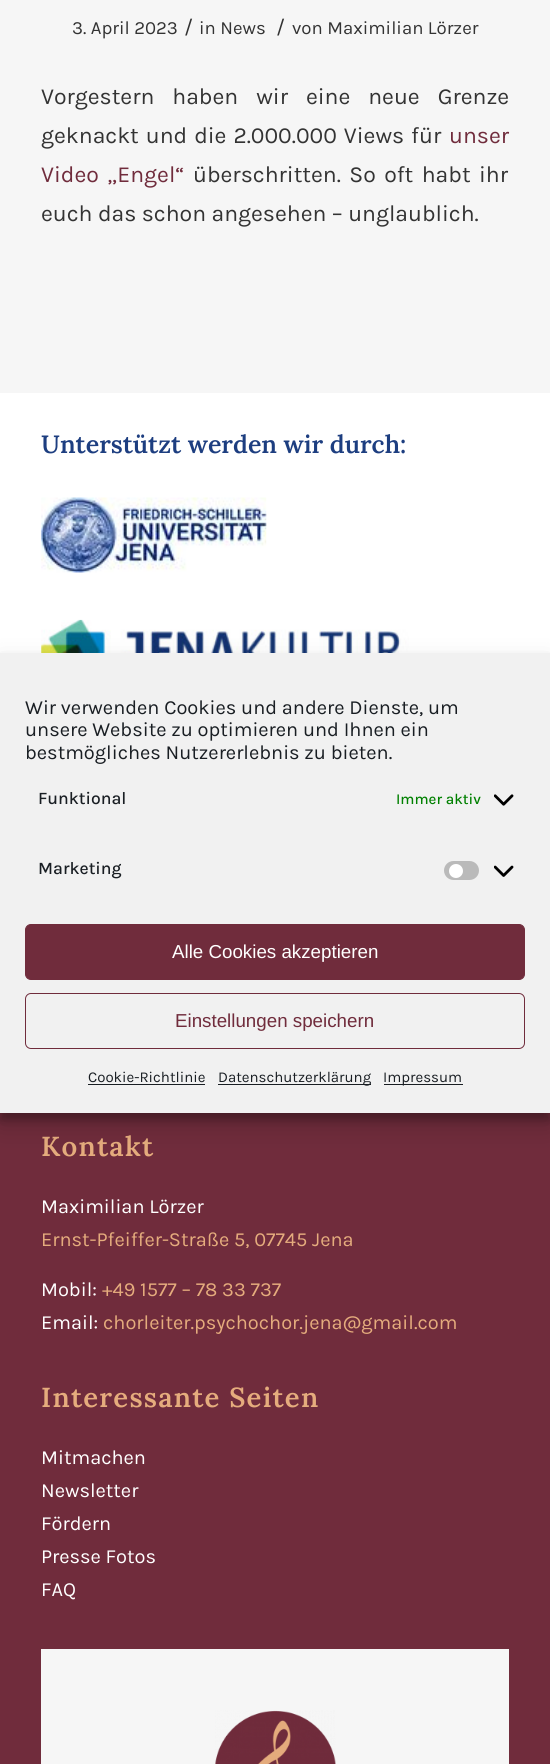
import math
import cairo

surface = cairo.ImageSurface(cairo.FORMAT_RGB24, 550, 1764)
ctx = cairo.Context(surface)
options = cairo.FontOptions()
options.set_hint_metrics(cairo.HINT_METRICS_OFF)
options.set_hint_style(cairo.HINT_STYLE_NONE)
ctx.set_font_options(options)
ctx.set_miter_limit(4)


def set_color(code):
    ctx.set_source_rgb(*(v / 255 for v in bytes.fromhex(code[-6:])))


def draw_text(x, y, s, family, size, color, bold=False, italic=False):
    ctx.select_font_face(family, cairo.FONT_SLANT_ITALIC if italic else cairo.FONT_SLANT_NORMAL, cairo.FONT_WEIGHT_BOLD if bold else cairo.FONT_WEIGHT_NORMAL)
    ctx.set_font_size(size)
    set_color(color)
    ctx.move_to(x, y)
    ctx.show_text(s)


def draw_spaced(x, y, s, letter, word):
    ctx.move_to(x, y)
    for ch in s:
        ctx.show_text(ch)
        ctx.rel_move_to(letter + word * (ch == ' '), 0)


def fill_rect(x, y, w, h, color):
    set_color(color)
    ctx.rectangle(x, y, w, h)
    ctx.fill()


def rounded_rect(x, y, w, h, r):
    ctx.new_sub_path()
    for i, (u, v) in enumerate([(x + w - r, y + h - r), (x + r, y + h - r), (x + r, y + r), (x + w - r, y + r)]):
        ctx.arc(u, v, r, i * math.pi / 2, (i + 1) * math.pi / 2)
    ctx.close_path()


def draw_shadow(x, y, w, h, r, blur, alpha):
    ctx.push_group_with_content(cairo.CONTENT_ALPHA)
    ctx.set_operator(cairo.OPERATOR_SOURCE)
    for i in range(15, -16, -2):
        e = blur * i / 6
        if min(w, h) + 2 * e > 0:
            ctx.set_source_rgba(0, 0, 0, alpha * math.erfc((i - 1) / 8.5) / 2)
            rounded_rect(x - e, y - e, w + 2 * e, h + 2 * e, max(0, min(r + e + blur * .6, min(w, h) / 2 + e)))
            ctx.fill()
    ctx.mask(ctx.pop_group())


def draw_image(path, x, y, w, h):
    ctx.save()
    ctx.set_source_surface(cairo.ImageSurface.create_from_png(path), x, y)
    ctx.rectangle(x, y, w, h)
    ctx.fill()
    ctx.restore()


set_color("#702c3c")
ctx.paint()
fill_rect(0, 0, 550, 393, "#f6f6f6")
draw_text(72, 34, "3. April 2023", "Karla", 18.6, "#333333")
draw_text(184, 34, "/", "Karla", 21, "#333333")
draw_text(199, 34, "in News", "Karla", 18.6, "#333333")
draw_text(276, 34, "/", "Karla", 21, "#333333")
draw_text(292, 34, "von Maximilian Lörzer", "Karla", 18.6, "#333333")
ctx.set_font_size(23)
draw_spaced(41, 104, "Vorgestern haben wir eine neue Grenze", 0, 12.5)
draw_spaced(41, 143, "geknackt und die 2.000.000 Views für", 0, 1.5)
draw_text(449, 143, "unser", "Karla", 23, "#702c3c")
draw_spaced(41, 182, "Video „Engel“", 0, 3)
set_color("#333333")
draw_spaced(193, 182, "überschritten. So oft habt ihr", 0, 3)
draw_text(41, 221, "euch das schon angesehen – unglaublich.", "Karla", 23, "#333333")
fill_rect(0, 393, 550, 260, "#ffffff")
draw_text(41, 453, "Unterstützt werden wir durch:", "Lora SemiBold", 25, "#1d3e80")
draw_image("assets/img1.png", 41, 497, 226, 76)
draw_image("assets/img2.png", 41, 619, 373, 34)
ctx.set_font_size(27.5)
set_color("#e5ac7d")
draw_spaced(41, 1156, "Kontakt", 1.25, 0)
draw_text(41, 1213, "Maximilian Lörzer", "Karla", 20, "#ffffff")
draw_text(41, 1246, "Ernst-Pfeiffer-Straße 5, 07745 Jena", "Karla", 20, "#e5ac7d")
draw_text(41, 1296, "Mobil:", "Karla", 20, "#ffffff")
draw_text(102, 1296, "+49 1577 – 78 33 737", "Karla", 20, "#e5ac7d")
draw_text(41, 1329, "Email:", "Karla", 20, "#ffffff")
draw_text(103, 1329, "chorleiter.psychochor.jena@gmail.com", "Karla", 20, "#e5ac7d")
ctx.select_font_face("Lora SemiBold")
ctx.set_font_size(27.5)
draw_spaced(41, 1407, "Interessante Seiten", 1.25, 0)
draw_text(41, 1464, "Mitmachen", "Karla", 20, "#ffffff")
draw_text(41, 1497, "Newsletter", "Karla", 20, "#ffffff")
draw_text(41, 1530, "Fördern", "Karla", 20, "#ffffff")
draw_text(41, 1563, "Presse Fotos", "Karla", 20, "#ffffff")
draw_text(41, 1596, "FAQ", "Karla", 20, "#ffffff")
fill_rect(41, 1649, 468, 115, "#f6f6f6")
draw_image("assets/img3.png", 215, 1710, 121, 54)
set_color("#000000")
draw_shadow(0, 660, 550, 460, 0, 4, 0.23)
draw_shadow(0, 665, 550, 460, 0, 12.5, 0.19)
fill_rect(0, 653, 550, 460, "#f1f1f1")
draw_text(25, 714, "Wir verwenden Cookies und andere Dienste, um", "Karla", 20, "#191e23")
draw_text(25, 736, "unsere Website zu optimieren und Ihnen ein", "Karla", 20, "#191e23")
draw_text(25, 759, "bestmögliches Nutzererlebnis zu bieten.", "Karla", 20, "#191e23")
draw_text(38, 804, "Funktional", "Karla Medium", 17.5, "#191e23")
draw_text(396, 804, "Immer aktiv", "Karla Medium", 15, "#008000")
draw_image("assets/img4.png", 494, 794, 20, 12)
draw_text(38, 874, "Marketing", "Karla Medium", 17.5, "#191e23")
set_color("#bababa")
rounded_rect(444, 861, 35, 19, 9.5)
ctx.fill()
set_color("#ffffff")
ctx.arc(456, 871, 7, 0, 2 * math.pi)
ctx.fill()
draw_image("assets/img5.png", 494, 865, 20, 12)
set_color("#702c3c")
rounded_rect(25.5, 924.5, 499, 55, 5.5)
ctx.fill_preserve()
ctx.set_line_width(1)
ctx.stroke()
draw_text(172, 958, "Alle Cookies akzeptieren", "Liberation Sans", 18.75, "#ffffff")
rounded_rect(25.5, 993.5, 499, 55, 5.5)
set_color("#702c3c")
ctx.stroke()
draw_text(175, 1027, "Einstellungen speichern", "Liberation Sans", 18.75, "#702c3c")
draw_text(88, 1082, "Cookie-Richtlinie", "Karla", 15, "#191e23")
fill_rect(88, 1084, 117, 1, "#191e23")
fill_rect(218, 1084, 153, 1, "#191e23")
draw_text(218, 1082, "Datenschutzerklärung", "Karla", 15, "#191e23")
fill_rect(384, 1084, 79, 1, "#191e23")
draw_text(383, 1082, "Impressum", "Karla", 15, "#191e23")
surface.write_to_png("output.png")
